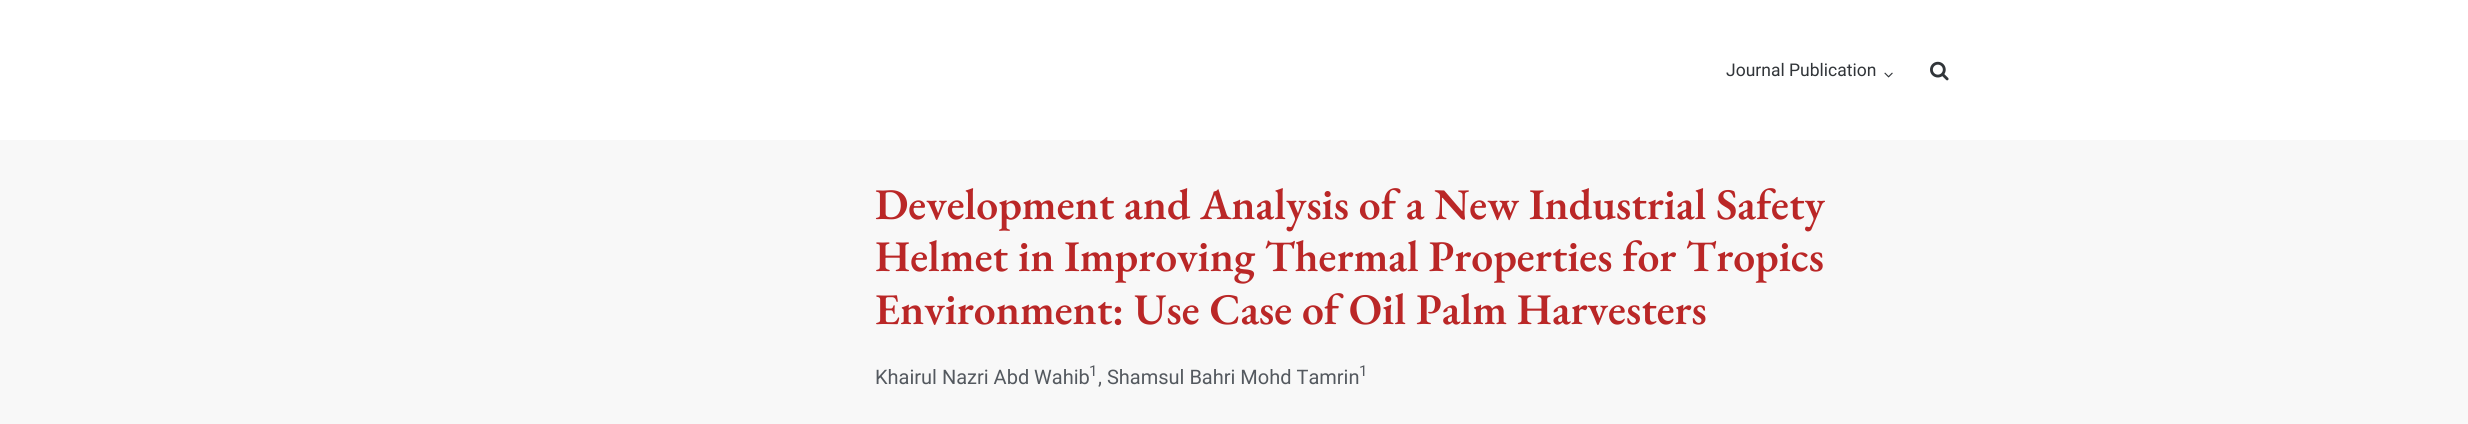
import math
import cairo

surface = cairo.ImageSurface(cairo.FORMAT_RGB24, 2468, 424)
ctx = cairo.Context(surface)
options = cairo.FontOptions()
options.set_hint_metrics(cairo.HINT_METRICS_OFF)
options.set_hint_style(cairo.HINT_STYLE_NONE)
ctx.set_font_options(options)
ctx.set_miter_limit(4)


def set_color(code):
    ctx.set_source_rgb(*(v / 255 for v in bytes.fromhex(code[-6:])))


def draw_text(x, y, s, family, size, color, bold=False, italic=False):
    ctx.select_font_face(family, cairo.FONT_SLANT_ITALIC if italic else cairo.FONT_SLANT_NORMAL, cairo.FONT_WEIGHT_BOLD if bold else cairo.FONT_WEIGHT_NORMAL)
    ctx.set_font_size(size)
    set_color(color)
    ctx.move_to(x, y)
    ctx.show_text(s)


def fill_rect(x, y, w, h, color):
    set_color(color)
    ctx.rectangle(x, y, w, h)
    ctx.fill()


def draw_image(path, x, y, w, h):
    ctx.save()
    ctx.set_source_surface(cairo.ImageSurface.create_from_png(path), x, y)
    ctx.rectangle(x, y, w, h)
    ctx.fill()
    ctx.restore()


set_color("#ffffff")
ctx.paint()
draw_text(1726, 76, "Journal Publication", "Roboto", 17.5, "#313539")
draw_image("assets/img1.png", 1884, 72, 9, 6)
draw_image("assets/img2.png", 1930, 61, 19, 20)
fill_rect(0, 140, 2468, 284, "#f8f8f8")
draw_text(875, 219, "Development and Analysis of a New Industrial Safety", "EB Garamond SemiBold", 43.75, "#ba2727")
draw_text(875, 271, "Helmet in Improving Thermal Properties for Tropics", "EB Garamond SemiBold", 43.75, "#ba2727")
draw_text(875, 324, "Environment: Use Case of Oil Palm Harvesters", "EB Garamond SemiBold", 43.75, "#ba2727")
draw_text(875, 384, "Khairul Nazri Abd Wahib", "Roboto", 20, "#54595f")
draw_text(1089, 376, "1", "Roboto", 15, "#54595f")
draw_text(1098, 384, ", Shamsul Bahri Mohd Tamrin", "Roboto", 20, "#54595f")
draw_text(1359, 376, "1", "Roboto", 15, "#54595f")
surface.write_to_png("output.png")
